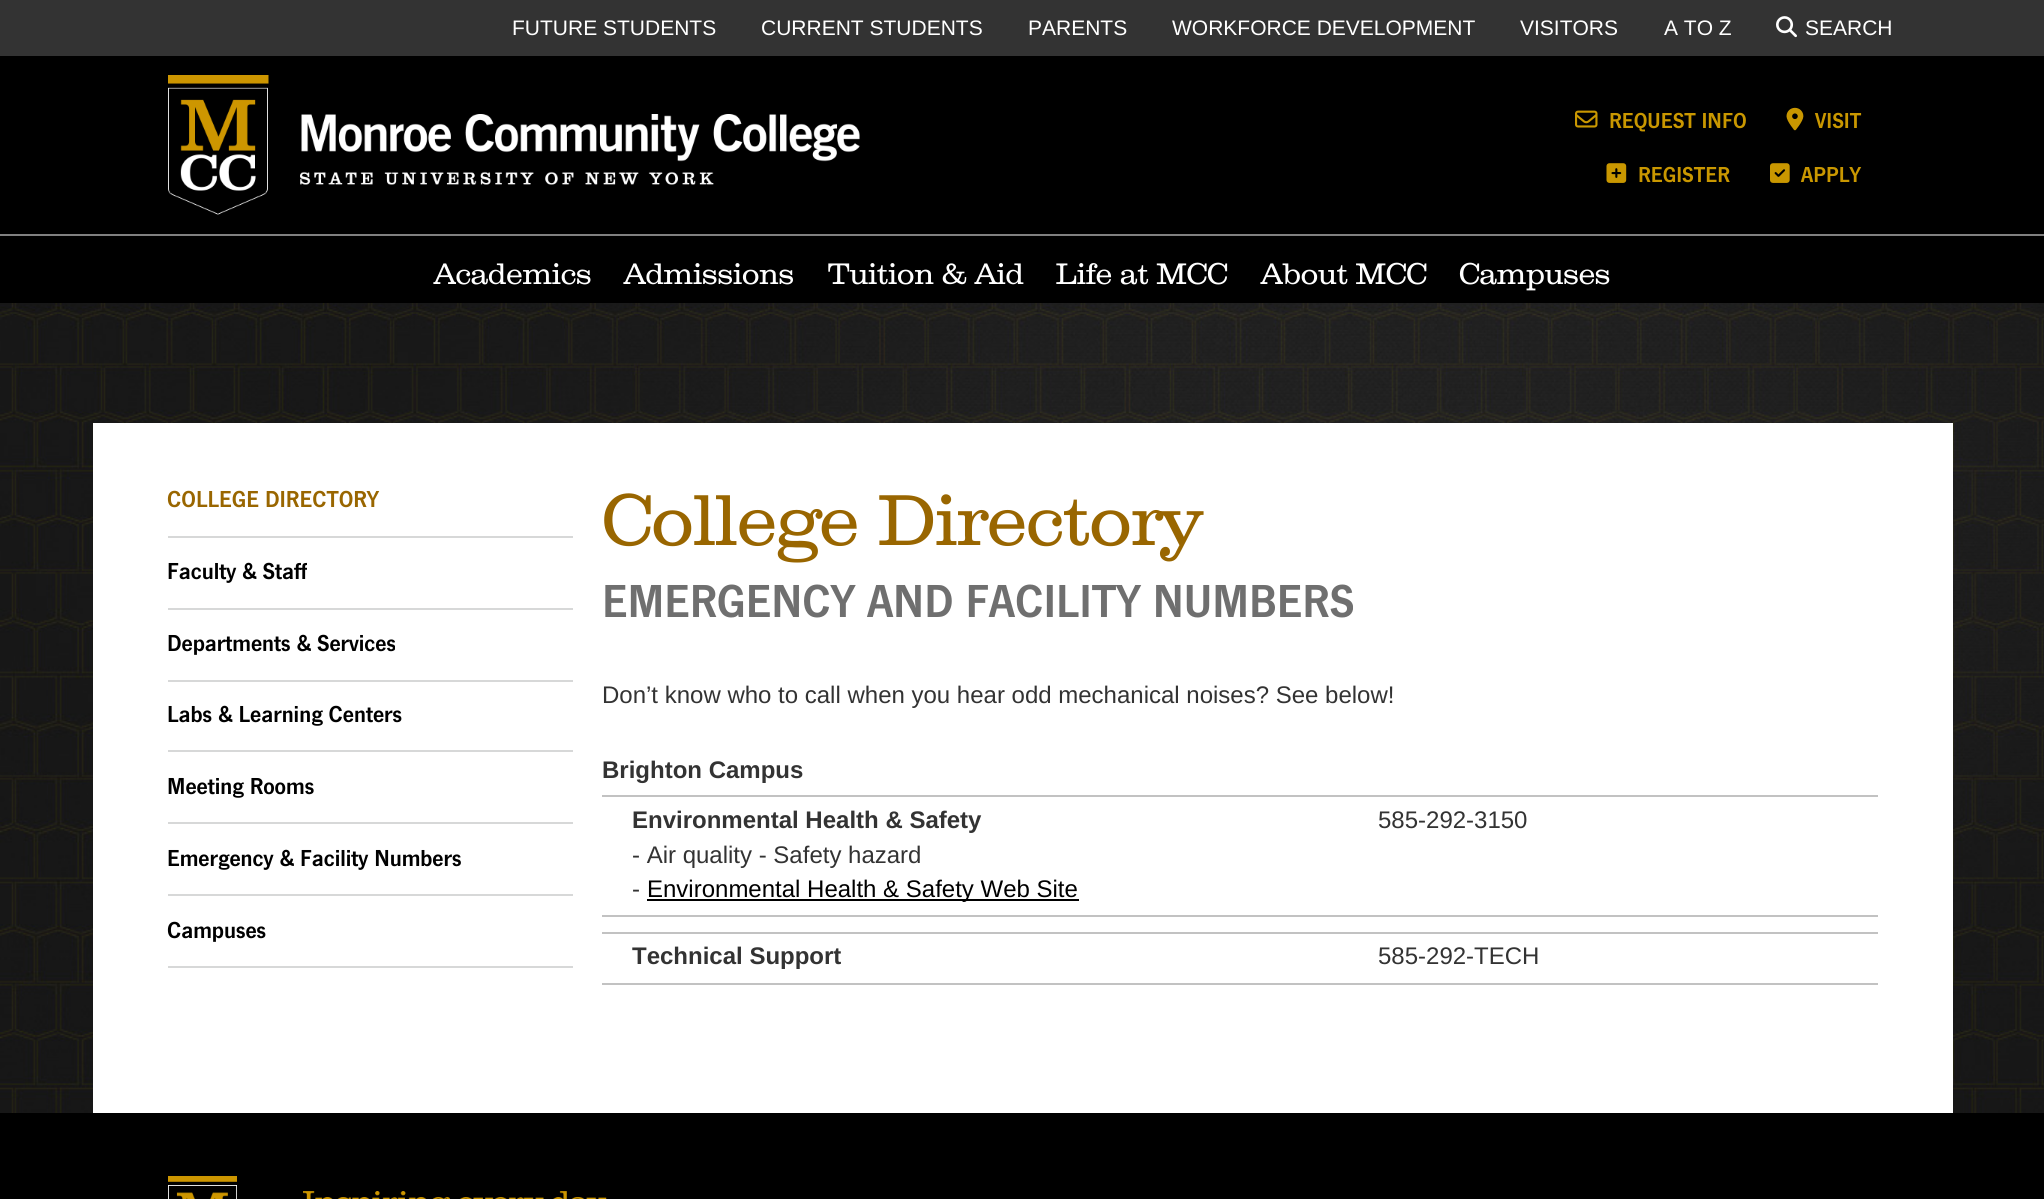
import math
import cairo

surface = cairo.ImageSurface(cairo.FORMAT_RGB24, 2044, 1199)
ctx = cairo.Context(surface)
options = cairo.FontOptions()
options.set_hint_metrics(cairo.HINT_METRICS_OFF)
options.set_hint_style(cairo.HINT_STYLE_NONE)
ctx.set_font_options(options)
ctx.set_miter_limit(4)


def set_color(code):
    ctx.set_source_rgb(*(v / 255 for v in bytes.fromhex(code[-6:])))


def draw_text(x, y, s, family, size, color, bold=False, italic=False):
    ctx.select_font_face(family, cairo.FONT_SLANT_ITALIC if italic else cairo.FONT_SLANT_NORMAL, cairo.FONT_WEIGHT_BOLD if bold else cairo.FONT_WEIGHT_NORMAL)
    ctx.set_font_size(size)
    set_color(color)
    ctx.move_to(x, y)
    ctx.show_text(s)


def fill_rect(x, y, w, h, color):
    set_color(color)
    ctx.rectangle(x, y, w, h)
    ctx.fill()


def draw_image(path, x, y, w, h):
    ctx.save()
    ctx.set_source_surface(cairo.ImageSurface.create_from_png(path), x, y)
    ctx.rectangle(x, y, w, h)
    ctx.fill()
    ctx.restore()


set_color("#000000")
ctx.paint()
fill_rect(0, 0, 2044, 56, "#333333")
draw_text(512, 35, "FUTURE STUDENTS", "Liberation Sans", 21, "#ffffff")
draw_text(761, 35, "CURRENT STUDENTS", "Liberation Sans", 21, "#ffffff")
draw_text(1028, 35, "PARENTS", "Liberation Sans", 21, "#ffffff")
draw_text(1172, 35, "WORKFORCE DEVELOPMENT", "Liberation Sans", 21, "#ffffff")
draw_text(1520, 35, "VISITORS", "Liberation Sans", 21, "#ffffff")
draw_text(1664, 35, "A TO Z", "Liberation Sans", 21, "#ffffff")
draw_image("assets/img1.png", 1776, 16, 21, 22)
draw_text(1805, 35, "SEARCH", "Liberation Sans", 21, "#ffffff")
draw_image("assets/img2.png", 168, 75, 692, 140)
draw_image("assets/img3.png", 1575, 110, 23, 18)
draw_text(1609, 128, "REQUEST INFO", "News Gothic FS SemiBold", 22.5, "#c99700")
draw_image("assets/img4.png", 1786, 107, 18, 24)
draw_text(1815, 128, "VISIT", "News Gothic FS SemiBold", 22.5, "#c99700")
draw_image("assets/img5.png", 1606, 163, 21, 20)
draw_text(1638, 182, "REGISTER", "News Gothic FS SemiBold", 22.5, "#c99700")
draw_image("assets/img6.png", 1770, 163, 20, 20)
draw_text(1801, 182, "APPLY", "News Gothic FS SemiBold", 22.5, "#c99700")
fill_rect(0, 234, 2044, 2, "#808080")
draw_text(434, 284, "Academics", "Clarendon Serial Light", 28.5, "#ffffff")
draw_text(624, 284, "Admissions", "Clarendon Serial Light", 28.5, "#ffffff")
draw_text(828, 284, "Tuition & Aid", "Clarendon Serial Light", 28.5, "#ffffff")
draw_text(1056, 284, "Life at MCC", "Clarendon Serial Light", 28.5, "#ffffff")
draw_text(1261, 284, "About MCC", "Clarendon Serial Light", 28.5, "#ffffff")
draw_text(1459, 284, "Campuses", "Clarendon Serial Light", 28.5, "#ffffff")
draw_image("assets/img7.png", 0, 303, 2044, 810)
fill_rect(93, 423, 1860, 690, "#ffffff")
fill_rect(168, 536, 405, 2, "#d7d8d8")
draw_text(167, 507, "COLLEGE DIRECTORY", "News Gothic FS SemiBold", 24, "#996600")
fill_rect(168, 608, 405, 2, "#d7d8d8")
draw_text(167, 579, "Faculty & Staff", "News Gothic FS SemiBold", 24, "#000000")
fill_rect(168, 680, 405, 2, "#d7d8d8")
draw_text(167, 651, "Departments & Services", "News Gothic FS SemiBold", 24, "#000000")
fill_rect(168, 750, 405, 2, "#d7d8d8")
draw_text(167, 722, "Labs & Learning Centers", "News Gothic FS SemiBold", 24, "#000000")
fill_rect(168, 822, 405, 2, "#d7d8d8")
draw_text(167, 794, "Meeting Rooms", "News Gothic FS SemiBold", 24, "#000000")
fill_rect(168, 894, 405, 2, "#d7d8d8")
draw_text(167, 866, "Emergency & Facility Numbers", "News Gothic FS SemiBold", 24, "#000000")
fill_rect(168, 966, 405, 2, "#d7d8d8")
draw_text(167, 938, "Campuses", "News Gothic FS SemiBold", 24, "#000000")
draw_text(602, 545, "College Directory", "Clarendon Serial Light", 69, "#996600")
draw_text(602, 617, "EMERGENCY AND FACILITY NUMBERS", "News Gothic FS SemiBold", 48, "#6f6f6f")
draw_text(602, 703, "Don’t know who to call when you hear odd mechanical noises? See below!", "Liberation Sans", 24, "#333333")
fill_rect(602, 795, 1276, 2, "#c2c2c2")
draw_text(602, 778, "Brighton Campus", "Liberation Sans", 24, "#333333", bold=True)
fill_rect(602, 915, 1276, 2, "#c2c2c2")
draw_text(632, 828, "Environmental Health & Safety", "Liberation Sans", 24, "#333333", bold=True)
draw_text(632, 863, "- Air quality - Safety hazard", "Liberation Sans", 24, "#333333")
draw_text(632, 897, "-", "Liberation Sans", 24, "#333333")
fill_rect(647, 899, 432, 2, "#000000")
draw_text(647, 897, "Environmental Health & Safety Web Site", "Liberation Sans", 24, "#000000")
draw_text(1378, 828, "585-292-3150", "Liberation Sans", 24, "#333333")
fill_rect(602, 932, 1276, 2, "#c2c2c2")
fill_rect(602, 983, 1276, 2, "#c2c2c2")
draw_text(632, 964, "Technical Support", "Liberation Sans", 24, "#333333", bold=True)
draw_text(1378, 964, "585-292-TECH", "Liberation Sans", 24, "#333333")
draw_image("assets/img8.png", 168, 1176, 69, 23)
draw_image("assets/img9.png", 303, 1191, 304, 8)
surface.write_to_png("output.png")
